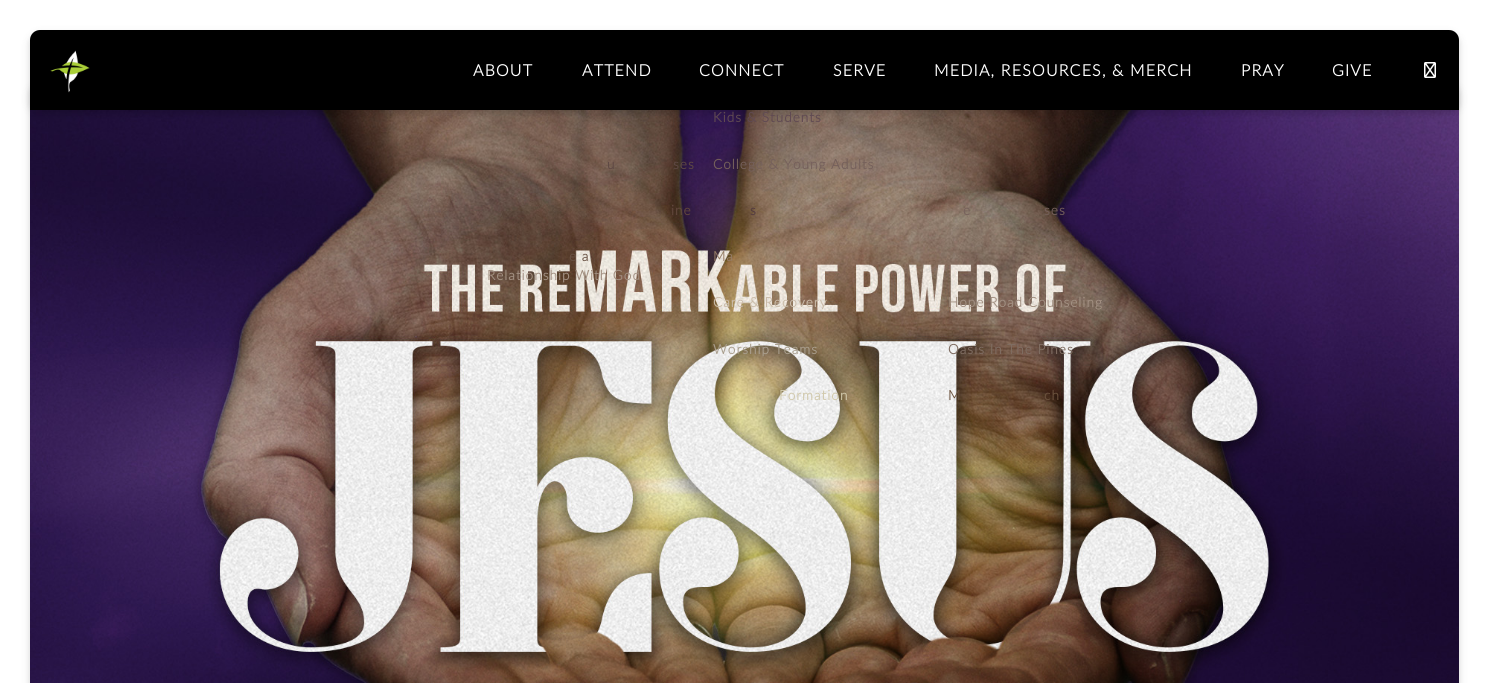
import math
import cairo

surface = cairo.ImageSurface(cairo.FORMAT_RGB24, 1489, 683)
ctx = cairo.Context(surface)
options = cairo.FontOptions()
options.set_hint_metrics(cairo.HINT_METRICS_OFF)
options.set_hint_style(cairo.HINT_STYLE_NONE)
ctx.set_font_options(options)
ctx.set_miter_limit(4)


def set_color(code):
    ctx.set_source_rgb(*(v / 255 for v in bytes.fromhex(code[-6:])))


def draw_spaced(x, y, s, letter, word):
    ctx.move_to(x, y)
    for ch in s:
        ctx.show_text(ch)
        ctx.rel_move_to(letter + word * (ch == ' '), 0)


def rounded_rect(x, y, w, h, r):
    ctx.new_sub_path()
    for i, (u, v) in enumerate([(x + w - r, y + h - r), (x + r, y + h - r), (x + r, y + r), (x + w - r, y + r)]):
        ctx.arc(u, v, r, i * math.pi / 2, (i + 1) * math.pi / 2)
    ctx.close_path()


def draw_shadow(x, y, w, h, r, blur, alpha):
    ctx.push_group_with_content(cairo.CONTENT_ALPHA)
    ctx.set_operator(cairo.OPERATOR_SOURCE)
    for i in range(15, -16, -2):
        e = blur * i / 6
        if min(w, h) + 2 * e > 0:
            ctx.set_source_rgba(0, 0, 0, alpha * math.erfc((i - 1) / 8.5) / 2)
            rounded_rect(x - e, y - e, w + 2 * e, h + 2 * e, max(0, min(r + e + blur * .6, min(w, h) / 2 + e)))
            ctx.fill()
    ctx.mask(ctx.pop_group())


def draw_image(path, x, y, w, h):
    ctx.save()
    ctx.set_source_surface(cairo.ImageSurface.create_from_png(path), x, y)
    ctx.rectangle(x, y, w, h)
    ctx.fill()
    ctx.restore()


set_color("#ffffff")
ctx.paint()
set_color("#000000")
draw_shadow(30, 84, 1429, 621, 10, 4, 0.17)
draw_image("assets/img3.png", 30, 110, 1429, 573)
draw_shadow(30, 34, 1429, 80, 10, 4, 0.17)
set_color("#000000")
ctx.new_path()
ctx.move_to(40, 30)
ctx.line_to(1449, 30)
ctx.curve_to(1454.5, 30, 1459, 34.5, 1459, 40)
ctx.line_to(1459, 110)
ctx.line_to(30, 110)
ctx.line_to(30, 40)
ctx.curve_to(30, 34.5, 34.5, 30, 40, 30)
ctx.close_path()
ctx.fill()
draw_image("assets/img1.png", 50, 50, 40, 43)
ctx.select_font_face("Lato", cairo.FONT_SLANT_NORMAL, cairo.FONT_WEIGHT_BOLD)
ctx.set_font_size(16)
set_color("#ffffff")
draw_spaced(473, 76, "ABOUT", 1.2, 0)
ctx.set_font_size(13.6)
set_color("#695244")
draw_spaced(569, 261, "e a", 1, 0)
set_color("#a29082")
draw_spaced(487, 280, "Relationship With God", 1, 0)
draw_image("assets/img2.png", 1424, 62, 12, 16)
ctx.set_font_size(16)
set_color("#ffffff")
draw_spaced(582, 76, "ATTEND", 1.2, 0)
ctx.set_font_size(13.6)
set_color("#5e4844")
draw_spaced(607, 169, "u", 1, 0)
draw_spaced(673, 169, "ses", 1, 0)
set_color("#61473c")
draw_spaced(671, 215, "ine", 1, 0)
ctx.set_font_size(16)
set_color("#ffffff")
draw_spaced(699, 76, "CONNECT", 1.2, 0)
ctx.set_font_size(13.6)
set_color("#604a52")
draw_spaced(713, 122, "Kids & Students", 1, 0)
set_color("#75605b")
draw_spaced(713, 169, "College & Young Adults", 1, 0)
set_color("#523a3f")
draw_spaced(750, 215, "s", 1, 0)
set_color("#967c65")
draw_spaced(713, 261, "Ma", 1, 0)
set_color("#cabba9")
draw_spaced(713, 307, "Care & Recovery", 1, 0)
set_color("#aa9f8e")
draw_spaced(713, 354, "Worship Teams", 1, 0)
set_color("#d1c9ac")
draw_spaced(779, 400, "Formation", 1, 0)
ctx.set_font_size(16)
set_color("#ffffff")
draw_spaced(833, 76, "SERVE", 1.2, 0)
draw_spaced(934, 76, "MEDIA, RESOURCES, & MERCH", 1.2, 0)
ctx.set_font_size(13.6)
set_color("#75605b")
draw_spaced(963, 215, "e", 1, 0)
draw_spaced(1044, 215, "ses", 1, 0)
set_color("#a29082")
draw_spaced(948, 307, "Hope Road Counseling", 1, 0)
set_color("#7f6d62")
draw_spaced(948, 354, "Oasis In The Pines", 1, 0)
set_color("#6a513d")
draw_spaced(948, 400, "M", 1, 0)
draw_spaced(1044, 400, "ch", 1, 0)
ctx.set_font_size(16)
set_color("#ffffff")
draw_spaced(1241, 76, "PRAY", 1.2, 0)
draw_spaced(1332, 76, "GIVE", 1.2, 0)
surface.write_to_png("output.png")
